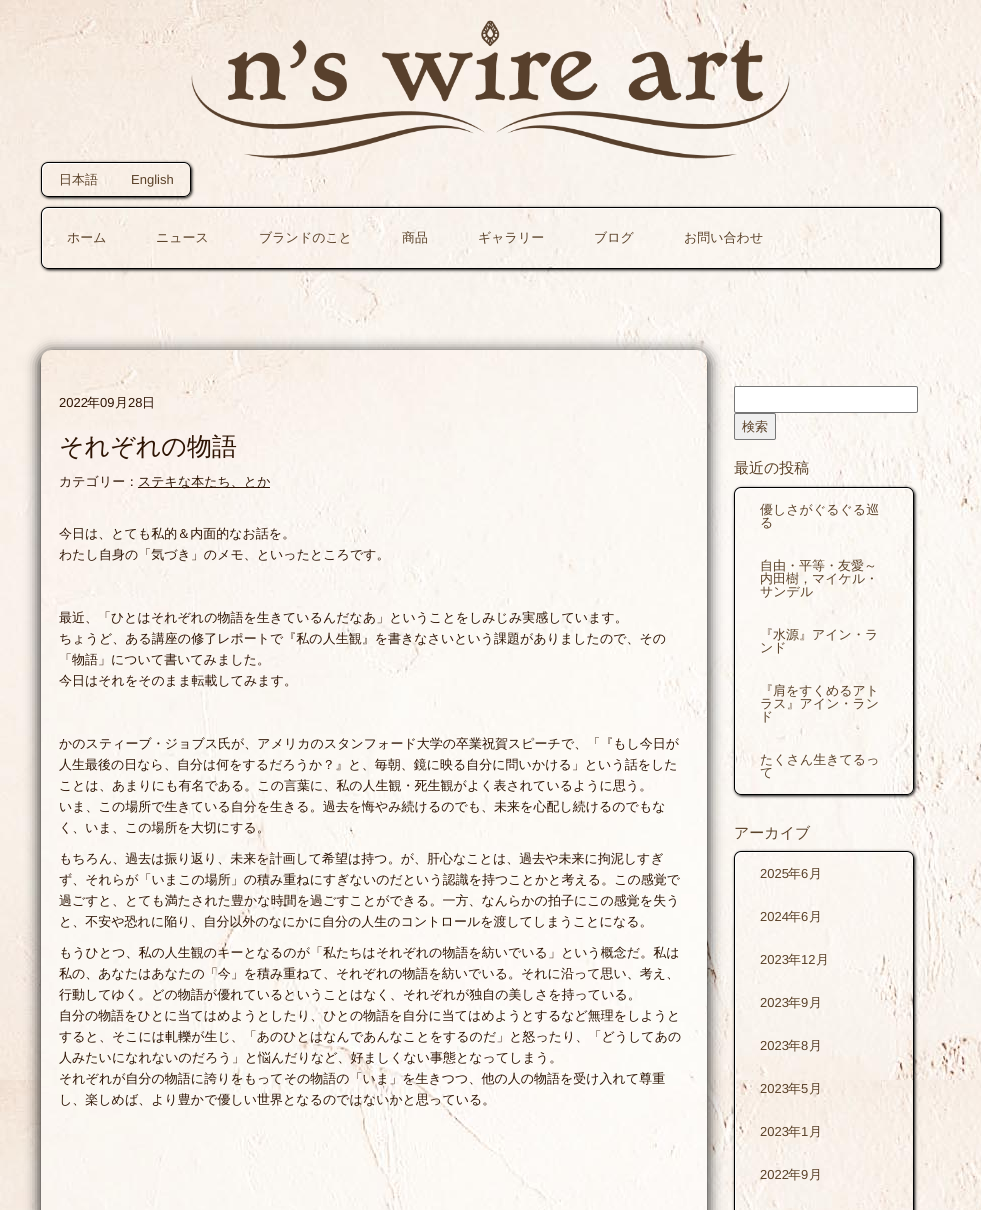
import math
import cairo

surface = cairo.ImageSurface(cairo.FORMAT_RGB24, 981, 1210)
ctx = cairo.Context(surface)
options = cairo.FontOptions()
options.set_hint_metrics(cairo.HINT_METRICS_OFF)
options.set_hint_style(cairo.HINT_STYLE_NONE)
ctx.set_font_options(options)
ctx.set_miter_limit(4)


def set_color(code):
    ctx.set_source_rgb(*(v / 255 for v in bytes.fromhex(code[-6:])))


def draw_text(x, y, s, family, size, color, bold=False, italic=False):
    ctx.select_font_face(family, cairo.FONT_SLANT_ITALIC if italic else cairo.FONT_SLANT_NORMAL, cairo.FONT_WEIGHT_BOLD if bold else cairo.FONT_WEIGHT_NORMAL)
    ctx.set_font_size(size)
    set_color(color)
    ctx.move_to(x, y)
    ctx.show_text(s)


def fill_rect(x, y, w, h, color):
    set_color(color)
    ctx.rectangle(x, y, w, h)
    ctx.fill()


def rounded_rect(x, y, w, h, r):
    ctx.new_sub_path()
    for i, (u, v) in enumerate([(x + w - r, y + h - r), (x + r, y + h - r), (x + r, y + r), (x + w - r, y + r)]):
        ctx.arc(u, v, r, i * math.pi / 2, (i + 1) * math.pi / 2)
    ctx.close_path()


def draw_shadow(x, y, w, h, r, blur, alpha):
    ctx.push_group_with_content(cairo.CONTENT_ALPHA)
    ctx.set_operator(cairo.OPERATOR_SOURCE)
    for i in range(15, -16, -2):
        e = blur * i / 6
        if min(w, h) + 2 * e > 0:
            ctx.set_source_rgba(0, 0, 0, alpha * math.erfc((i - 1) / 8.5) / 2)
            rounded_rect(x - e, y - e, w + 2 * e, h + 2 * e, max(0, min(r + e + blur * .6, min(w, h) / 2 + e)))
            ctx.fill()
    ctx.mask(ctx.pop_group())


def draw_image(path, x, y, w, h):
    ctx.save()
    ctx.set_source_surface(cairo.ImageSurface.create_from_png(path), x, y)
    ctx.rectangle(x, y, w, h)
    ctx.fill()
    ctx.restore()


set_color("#ffffff")
ctx.paint()
draw_image("assets/img1.png", 0, 0, 981, 1210)
draw_image("assets/img2.png", 191, 20, 599, 139)
ctx.save()
ctx.set_fill_rule(cairo.FILL_RULE_EVEN_ODD)
ctx.new_path()
ctx.move_to(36, 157)
ctx.line_to(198, 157)
ctx.line_to(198, 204)
ctx.line_to(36, 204)
ctx.close_path()
ctx.move_to(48, 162)
ctx.line_to(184, 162)
ctx.curve_to(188, 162, 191, 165, 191, 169)
ctx.line_to(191, 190)
ctx.curve_to(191, 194, 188, 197, 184, 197)
ctx.line_to(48, 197)
ctx.curve_to(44, 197, 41, 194, 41, 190)
ctx.line_to(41, 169)
ctx.curve_to(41, 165, 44, 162, 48, 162)
ctx.close_path()
ctx.clip()
set_color("#000000")
draw_shadow(42, 163, 150, 35, 7, 1.5, 1)
ctx.restore()
set_color("#ffffff")
ctx.new_path()
ctx.move_to(49, 164)
ctx.line_to(186, 164)
ctx.line_to(189, 166)
ctx.curve_to(188, 164, 186, 163, 184, 163)
ctx.line_to(48, 163)
ctx.curve_to(45, 163, 42, 166, 42, 169)
ctx.line_to(42, 190)
ctx.curve_to(42, 192, 43, 194, 45, 195)
ctx.curve_to(42, 192, 43, 185, 43, 180)
ctx.curve_to(43, 176, 41, 164, 49, 164)
ctx.close_path()
ctx.fill()
rounded_rect(41.5, 162.5, 149, 34, 6.5)
set_color("#000000")
ctx.set_line_width(1)
ctx.stroke()
draw_text(59, 184, "日本語", "WenQuanYi Zen Hei Medium", 13, "#5a4128")
draw_text(131, 184, "English", "Liberation Sans", 13, "#5a4128")
ctx.save()
ctx.set_fill_rule(cairo.FILL_RULE_EVEN_ODD)
ctx.new_path()
ctx.move_to(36, 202)
ctx.line_to(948, 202)
ctx.line_to(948, 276)
ctx.line_to(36, 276)
ctx.close_path()
ctx.move_to(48, 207)
ctx.line_to(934, 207)
ctx.curve_to(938, 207, 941, 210, 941, 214)
ctx.line_to(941, 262)
ctx.curve_to(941, 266, 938, 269, 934, 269)
ctx.line_to(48, 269)
ctx.curve_to(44, 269, 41, 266, 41, 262)
ctx.line_to(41, 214)
ctx.curve_to(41, 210, 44, 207, 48, 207)
ctx.close_path()
ctx.clip()
set_color("#000000")
draw_shadow(42, 208, 900, 62, 7, 1.5, 1)
ctx.restore()
set_color("#ffffff")
ctx.new_path()
ctx.move_to(49, 209)
ctx.line_to(935, 209)
ctx.curve_to(936, 209, 938, 210, 939, 211)
ctx.curve_to(938, 209, 936, 208, 934, 208)
ctx.line_to(48, 208)
ctx.curve_to(45, 208, 42, 211, 42, 214)
ctx.line_to(42, 262)
ctx.curve_to(42, 264, 43, 266, 45, 267)
ctx.curve_to(44, 266, 43, 264, 43, 263)
ctx.line_to(43, 215)
ctx.curve_to(43, 212, 46, 209, 49, 209)
ctx.close_path()
ctx.fill()
rounded_rect(41.5, 207.5, 899, 61, 6.5)
set_color("#000000")
ctx.stroke()
draw_text(67, 242, "ホーム", "WenQuanYi Zen Hei Medium", 13, "#5a4128")
draw_text(156, 242, "ニュース", "WenQuanYi Zen Hei Medium", 13, "#5a4128")
draw_text(259, 242, "ブランドのこと", "WenQuanYi Zen Hei Medium", 13, "#5a4128")
draw_text(402, 242, "商品", "WenQuanYi Zen Hei Medium", 13, "#5a4128")
draw_text(478, 242, "ギャラリー", "WenQuanYi Zen Hei Medium", 13, "#5a4128")
draw_text(594, 242, "ブログ", "WenQuanYi Zen Hei Medium", 13, "#5a4128")
draw_text(684, 242, "お問い合わせ", "WenQuanYi Zen Hei Medium", 13, "#5a4128")
set_color("#000000")
draw_shadow(41, 353, 666, 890, 10, 7.5, 1)
draw_image("assets/img3.png", 41, 350, 666, 860)
draw_text(59, 407, "2022", "Liberation Sans", 13, "#2e1403")
draw_text(87, 407, "年", "WenQuanYi Zen Hei Medium", 13, "#2e1403")
draw_text(100, 407, "09", "Liberation Sans", 13, "#2e1403")
draw_text(115, 407, "月", "WenQuanYi Zen Hei Medium", 13, "#2e1403")
draw_text(128, 407, "28", "Liberation Sans", 13, "#2e1403")
draw_text(142, 407, "日", "WenQuanYi Zen Hei Medium", 13, "#2e1403")
draw_text(59, 455, "それぞれの物語", "WenQuanYi Zen Hei Medium", 25, "#2e1403")
draw_text(59, 486, "カテゴリー：", "WenQuanYi Zen Hei Medium", 13, "#2e1403")
fill_rect(138, 487, 132, 1, "#2e1403")
draw_text(138, 486, "ステキな本たち、とか", "WenQuanYi Zen Hei Medium", 13, "#2e1403")
draw_text(59, 538, "今日は、とても私的＆内面的なお話を。", "WenQuanYi Zen Hei Medium", 13, "#2e1403")
draw_text(59, 559, "わたし自身の「気づき」のメモ、といったところです。", "WenQuanYi Zen Hei Medium", 13, "#2e1403")
draw_text(59, 622, "最近、「ひとはそれぞれの物語を生きているんだなあ」ということをしみじみ実感しています。", "WenQuanYi Zen Hei Medium", 13, "#2e1403")
draw_text(59, 643, "ちょうど、ある講座の修了レポートで『私の人生観』を書きなさいという課題がありましたので、その", "WenQuanYi Zen Hei Medium", 13, "#2e1403")
draw_text(59, 664, "「物語」について書いてみました。", "WenQuanYi Zen Hei Medium", 13, "#2e1403")
draw_text(59, 685, "今日はそれをそのまま転載してみます。", "WenQuanYi Zen Hei Medium", 13, "#2e1403")
draw_text(59, 748, "かのスティーブ・ジョブス氏が、アメリカのスタンフォード大学の卒業祝賀スピーチで、「『もし今日が", "WenQuanYi Zen Hei Medium", 13, "#2e1403")
draw_text(59, 769, "人生最後の日なら、自分は何をするだろうか？』と、毎朝、鏡に映る自分に問いかける」という話をした", "WenQuanYi Zen Hei Medium", 13, "#2e1403")
draw_text(59, 790, "ことは、あまりにも有名である。この言葉に、私の人生観・死生観がよく表されているように思う。", "WenQuanYi Zen Hei Medium", 13, "#2e1403")
draw_text(59, 811, "いま、この場所で生きている自分を生きる。過去を悔やみ続けるのでも、未来を心配し続けるのでもな", "WenQuanYi Zen Hei Medium", 13, "#2e1403")
draw_text(59, 832, "く、いま、この場所を大切にする。", "WenQuanYi Zen Hei Medium", 13, "#2e1403")
draw_text(59, 863, "もちろん、過去は振り返り、未来を計画して希望は持つ。が、肝心なことは、過去や未来に拘泥しすぎ", "WenQuanYi Zen Hei Medium", 13, "#2e1403")
draw_text(59, 884, "ず、それらが「いまこの場所」の積み重ねにすぎないのだという認識を持つことかと考える。この感覚で", "WenQuanYi Zen Hei Medium", 13, "#2e1403")
draw_text(59, 905, "過ごすと、とても満たされた豊かな時間を過ごすことができる。一方、なんらかの拍子にこの感覚を失う", "WenQuanYi Zen Hei Medium", 13, "#2e1403")
draw_text(59, 926, "と、不安や恐れに陥り、自分以外のなにかに自分の人生のコントロールを渡してしまうことになる。", "WenQuanYi Zen Hei Medium", 13, "#2e1403")
draw_text(59, 957, "もうひとつ、私の人生観のキーとなるのが「私たちはそれぞれの物語を紡いでいる」という概念だ。私は", "WenQuanYi Zen Hei Medium", 13, "#2e1403")
draw_text(59, 978, "私の、あなたはあなたの「今」を積み重ねて、それぞれの物語を紡いでいる。それに沿って思い、考え、", "WenQuanYi Zen Hei Medium", 13, "#2e1403")
draw_text(59, 999, "行動してゆく。どの物語が優れているということはなく、それぞれが独自の美しさを持っている。", "WenQuanYi Zen Hei Medium", 13, "#2e1403")
draw_text(59, 1020, "自分の物語をひとに当てはめようとしたり、ひとの物語を自分に当てはめようとするなど無理をしようと", "WenQuanYi Zen Hei Medium", 13, "#2e1403")
draw_text(59, 1041, "すると、そこには軋轢が生じ、「あのひとはなんであんなことをするのだ」と怒ったり、「どうしてあの", "WenQuanYi Zen Hei Medium", 13, "#2e1403")
draw_text(59, 1062, "人みたいになれないのだろう」と悩んだりなど、好ましくない事態となってしまう。", "WenQuanYi Zen Hei Medium", 13, "#2e1403")
draw_text(59, 1083, "それぞれが自分の物語に誇りをもってその物語の「いま」を生きつつ、他の人の物語を受け入れて尊重", "WenQuanYi Zen Hei Medium", 13, "#2e1403")
draw_text(59, 1104, "し、楽しめば、より豊かで優しい世界となるのではないかと思っている。", "WenQuanYi Zen Hei Medium", 13, "#2e1403")
set_color("#ffffff")
rounded_rect(734.5, 386.5, 183, 26, 1.5)
ctx.fill_preserve()
set_color("#767676")
ctx.stroke()
set_color("#efefef")
rounded_rect(734.5, 413.5, 41, 26, 1.5)
ctx.fill_preserve()
set_color("#767676")
ctx.stroke()
draw_text(742, 431, "検索", "WenQuanYi Zen Hei Medium", 13, "#5a4128")
draw_text(734, 473, "最近の投稿", "WenQuanYi Zen Hei Medium", 15, "#5a4128")
ctx.save()
ctx.set_fill_rule(cairo.FILL_RULE_EVEN_ODD)
ctx.new_path()
ctx.move_to(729, 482)
ctx.line_to(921, 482)
ctx.line_to(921, 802)
ctx.line_to(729, 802)
ctx.close_path()
ctx.move_to(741, 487)
ctx.line_to(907, 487)
ctx.curve_to(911, 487, 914, 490, 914, 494)
ctx.line_to(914, 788)
ctx.curve_to(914, 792, 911, 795, 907, 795)
ctx.line_to(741, 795)
ctx.curve_to(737, 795, 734, 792, 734, 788)
ctx.line_to(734, 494)
ctx.curve_to(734, 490, 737, 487, 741, 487)
ctx.close_path()
ctx.clip()
set_color("#000000")
draw_shadow(735, 488, 180, 308, 7, 1.5, 1)
ctx.restore()
set_color("#ffffff")
ctx.new_path()
ctx.move_to(742, 489)
ctx.line_to(909, 489)
ctx.line_to(912, 491)
ctx.curve_to(911, 489, 909, 488, 907, 488)
ctx.line_to(741, 488)
ctx.curve_to(738, 488, 735, 491, 735, 494)
ctx.line_to(735, 788)
ctx.curve_to(735, 790, 736, 792, 738, 793)
ctx.line_to(736, 790)
ctx.line_to(736, 544)
ctx.curve_to(736, 541, 728, 489, 742, 489)
ctx.close_path()
ctx.fill()
rounded_rect(734.5, 487.5, 179, 307, 6.5)
set_color("#000000")
ctx.stroke()
draw_text(760, 514, "優しさがぐるぐる巡", "WenQuanYi Zen Hei Medium", 13, "#5a4128")
draw_text(760, 527, "る", "WenQuanYi Zen Hei Medium", 13, "#5a4128")
draw_text(760, 570, "自由・平等・友愛～", "WenQuanYi Zen Hei Medium", 13, "#5a4128")
draw_text(760, 583, "内田樹，マイケル・", "WenQuanYi Zen Hei Medium", 13, "#5a4128")
draw_text(760, 596, "サンデル", "WenQuanYi Zen Hei Medium", 13, "#5a4128")
draw_text(760, 639, "『水源』アイン・ラ", "WenQuanYi Zen Hei Medium", 13, "#5a4128")
draw_text(760, 652, "ンド", "WenQuanYi Zen Hei Medium", 13, "#5a4128")
draw_text(760, 695, "『肩をすくめるアト", "WenQuanYi Zen Hei Medium", 13, "#5a4128")
draw_text(760, 708, "ラス』アイン・ラン", "WenQuanYi Zen Hei Medium", 13, "#5a4128")
draw_text(760, 721, "ド", "WenQuanYi Zen Hei Medium", 13, "#5a4128")
draw_text(760, 764, "たくさん生きてるっ", "WenQuanYi Zen Hei Medium", 13, "#5a4128")
draw_text(760, 777, "て", "WenQuanYi Zen Hei Medium", 13, "#5a4128")
draw_text(734, 838, "アーカイブ", "WenQuanYi Zen Hei Medium", 15, "#5a4128")
ctx.save()
ctx.set_fill_rule(cairo.FILL_RULE_EVEN_ODD)
ctx.new_path()
ctx.move_to(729, 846)
ctx.line_to(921, 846)
ctx.line_to(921, 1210)
ctx.line_to(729, 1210)
ctx.close_path()
ctx.move_to(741, 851)
ctx.line_to(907, 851)
ctx.curve_to(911, 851, 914, 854, 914, 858)
ctx.line_to(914, 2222)
ctx.curve_to(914, 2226, 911, 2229, 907, 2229)
ctx.line_to(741, 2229)
ctx.curve_to(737, 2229, 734, 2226, 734, 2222)
ctx.line_to(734, 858)
ctx.curve_to(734, 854, 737, 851, 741, 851)
ctx.close_path()
ctx.clip()
set_color("#000000")
draw_shadow(735, 852, 180, 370, 7, 1.5, 1)
ctx.restore()
set_color("#ffffff")
ctx.new_path()
ctx.move_to(742, 853)
ctx.line_to(909, 853)
ctx.line_to(912, 855)
ctx.curve_to(911, 853, 909, 852, 907, 852)
ctx.line_to(741, 852)
ctx.curve_to(738, 852, 735, 855, 735, 858)
ctx.line_to(735, 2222)
ctx.curve_to(735, 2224, 736, 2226, 738, 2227)
ctx.curve_to(737, 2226, 736, 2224, 736, 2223)
ctx.line_to(736, 859)
ctx.curve_to(736, 856, 739, 853, 742, 853)
ctx.close_path()
ctx.fill()
rounded_rect(734.5, 851.5, 179, 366, 6.5)
set_color("#000000")
ctx.stroke()
draw_text(760, 878, "2025", "Liberation Sans", 13, "#5a4128")
draw_text(788, 878, "年", "WenQuanYi Zen Hei Medium", 13, "#5a4128")
draw_text(801, 878, "6", "Liberation Sans", 13, "#5a4128")
draw_text(809, 878, "月", "WenQuanYi Zen Hei Medium", 13, "#5a4128")
draw_text(760, 921, "2024", "Liberation Sans", 13, "#5a4128")
draw_text(788, 921, "年", "WenQuanYi Zen Hei Medium", 13, "#5a4128")
draw_text(801, 921, "6", "Liberation Sans", 13, "#5a4128")
draw_text(809, 921, "月", "WenQuanYi Zen Hei Medium", 13, "#5a4128")
draw_text(760, 964, "2023", "Liberation Sans", 13, "#5a4128")
draw_text(788, 964, "年", "WenQuanYi Zen Hei Medium", 13, "#5a4128")
draw_text(801, 964, "12", "Liberation Sans", 13, "#5a4128")
draw_text(816, 964, "月", "WenQuanYi Zen Hei Medium", 13, "#5a4128")
draw_text(760, 1007, "2023", "Liberation Sans", 13, "#5a4128")
draw_text(788, 1007, "年", "WenQuanYi Zen Hei Medium", 13, "#5a4128")
draw_text(801, 1007, "9", "Liberation Sans", 13, "#5a4128")
draw_text(809, 1007, "月", "WenQuanYi Zen Hei Medium", 13, "#5a4128")
draw_text(760, 1050, "2023", "Liberation Sans", 13, "#5a4128")
draw_text(788, 1050, "年", "WenQuanYi Zen Hei Medium", 13, "#5a4128")
draw_text(801, 1050, "8", "Liberation Sans", 13, "#5a4128")
draw_text(809, 1050, "月", "WenQuanYi Zen Hei Medium", 13, "#5a4128")
draw_text(760, 1093, "2023", "Liberation Sans", 13, "#5a4128")
draw_text(788, 1093, "年", "WenQuanYi Zen Hei Medium", 13, "#5a4128")
draw_text(801, 1093, "5", "Liberation Sans", 13, "#5a4128")
draw_text(809, 1093, "月", "WenQuanYi Zen Hei Medium", 13, "#5a4128")
draw_text(760, 1136, "2023", "Liberation Sans", 13, "#5a4128")
draw_text(788, 1136, "年", "WenQuanYi Zen Hei Medium", 13, "#5a4128")
draw_text(801, 1136, "1", "Liberation Sans", 13, "#5a4128")
draw_text(809, 1136, "月", "WenQuanYi Zen Hei Medium", 13, "#5a4128")
draw_text(760, 1179, "2022", "Liberation Sans", 13, "#5a4128")
draw_text(788, 1179, "年", "WenQuanYi Zen Hei Medium", 13, "#5a4128")
draw_text(801, 1179, "9", "Liberation Sans", 13, "#5a4128")
draw_text(809, 1179, "月", "WenQuanYi Zen Hei Medium", 13, "#5a4128")
surface.write_to_png("output.png")
